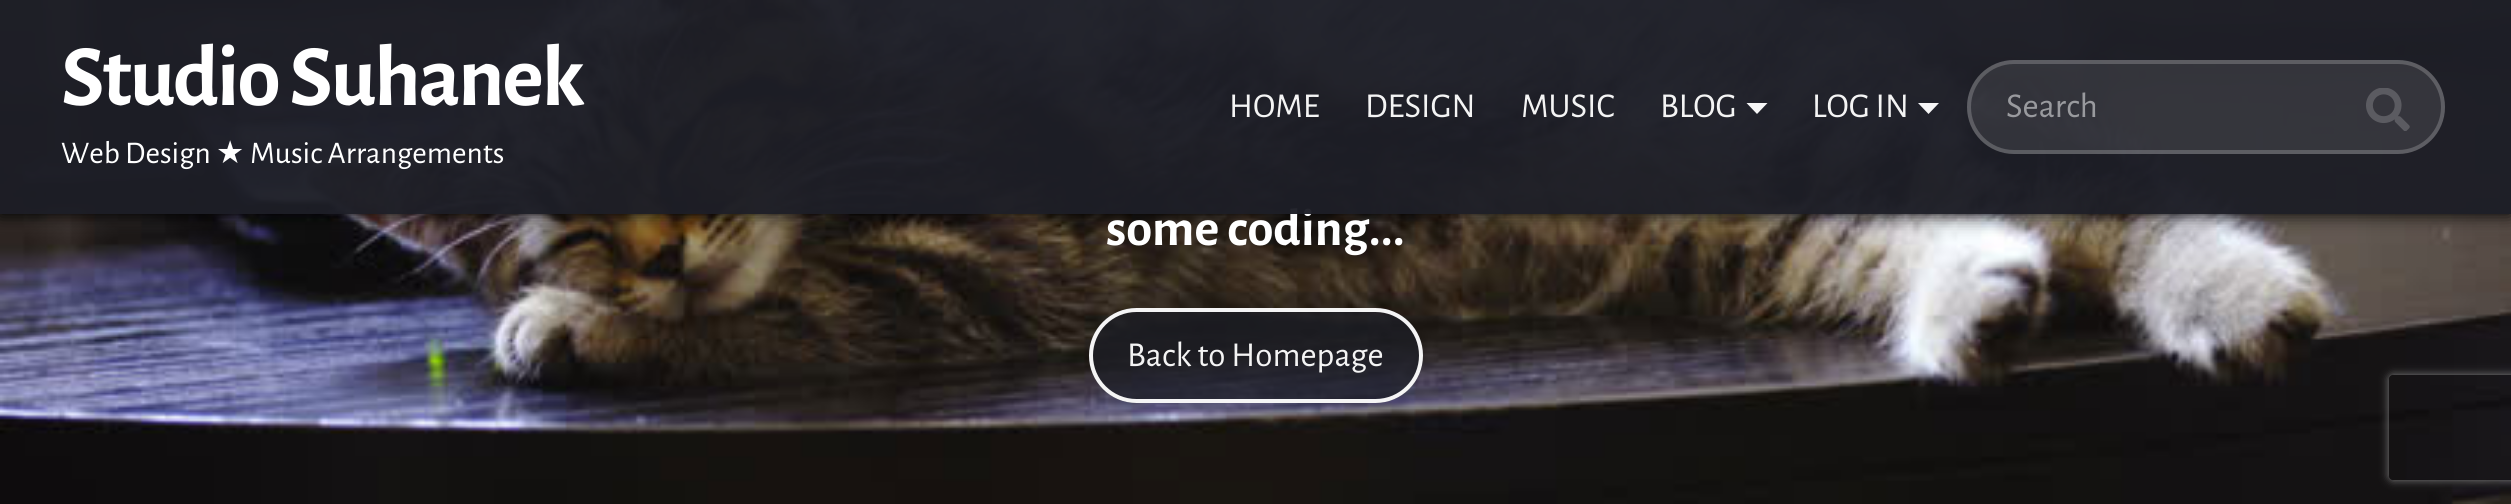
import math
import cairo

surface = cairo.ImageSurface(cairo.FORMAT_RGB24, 2511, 504)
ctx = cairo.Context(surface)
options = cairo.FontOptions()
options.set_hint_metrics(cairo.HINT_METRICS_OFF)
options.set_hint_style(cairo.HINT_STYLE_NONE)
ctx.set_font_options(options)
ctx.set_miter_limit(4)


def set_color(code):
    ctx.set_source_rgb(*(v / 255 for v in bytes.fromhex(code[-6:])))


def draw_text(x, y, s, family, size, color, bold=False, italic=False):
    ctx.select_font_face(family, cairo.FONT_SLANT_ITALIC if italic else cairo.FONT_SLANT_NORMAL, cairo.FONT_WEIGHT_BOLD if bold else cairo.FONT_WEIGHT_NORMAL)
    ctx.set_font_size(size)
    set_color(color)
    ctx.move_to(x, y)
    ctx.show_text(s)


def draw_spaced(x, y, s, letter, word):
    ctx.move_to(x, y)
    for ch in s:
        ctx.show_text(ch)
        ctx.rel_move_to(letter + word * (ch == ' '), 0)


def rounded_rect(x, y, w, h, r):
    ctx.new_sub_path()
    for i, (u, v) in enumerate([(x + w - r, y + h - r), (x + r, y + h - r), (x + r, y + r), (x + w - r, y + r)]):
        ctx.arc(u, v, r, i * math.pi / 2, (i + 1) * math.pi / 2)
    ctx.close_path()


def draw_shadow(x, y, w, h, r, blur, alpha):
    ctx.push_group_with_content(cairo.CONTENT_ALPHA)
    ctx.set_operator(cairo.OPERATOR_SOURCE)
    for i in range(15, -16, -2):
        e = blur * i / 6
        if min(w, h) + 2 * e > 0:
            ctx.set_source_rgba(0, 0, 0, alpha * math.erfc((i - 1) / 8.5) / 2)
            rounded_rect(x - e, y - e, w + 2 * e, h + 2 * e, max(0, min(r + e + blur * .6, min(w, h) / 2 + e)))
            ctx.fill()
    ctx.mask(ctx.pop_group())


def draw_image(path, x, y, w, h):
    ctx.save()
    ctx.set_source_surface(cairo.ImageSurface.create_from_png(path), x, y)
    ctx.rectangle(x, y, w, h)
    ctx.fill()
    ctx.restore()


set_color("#ffffff")
ctx.paint()
draw_image("assets/img1.png", 0, 0, 2511, 504)
ctx.save()
ctx.set_fill_rule(cairo.FILL_RULE_EVEN_ODD)
ctx.new_path()
ctx.move_to(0, 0)
ctx.line_to(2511, 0)
ctx.line_to(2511, 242)
ctx.line_to(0, 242)
ctx.close_path()
ctx.move_to(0, 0)
ctx.line_to(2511, 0)
ctx.line_to(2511, 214)
ctx.line_to(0, 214)
ctx.close_path()
ctx.clip()
set_color("#000000")
draw_shadow(0, 0, 2511, 214, 0, 9, 1)
ctx.restore()
draw_text(1106, 245, "some coding...", "Alegreya Sans", 52.5, "#ffffff", bold=True)
ctx.set_source_rgba(0.11, 0.114, 0.149, 0.96)
ctx.rectangle(0, 0, 2511, 214)
ctx.fill()
ctx.set_font_size(87.5)
set_color("#ffffff")
draw_spaced(61, 105, "Studio Suhanek", -2.25, 0)
draw_text(61, 163, "Web Design", "Alegreya Sans", 31.5, "#ffffff")
draw_text(216, 163, "★", "DejaVu Sans", 31.5, "#ffffff")
draw_text(250, 163, "Music Arrangements", "Alegreya Sans", 31.5, "#ffffff")
draw_text(1229, 117, "HOME", "Alegreya Sans", 35, "#f4f4f4")
draw_text(1365, 117, "DESIGN", "Alegreya Sans", 35, "#f4f4f4")
draw_text(1521, 117, "MUSIC", "Alegreya Sans", 35, "#f4f4f4")
draw_text(1660, 117, "BLOG", "Alegreya Sans", 35, "#f4f4f4")
set_color("#f6f6f7")
ctx.new_path()
ctx.move_to(1746.5, 103)
ctx.line_to(1767.5, 103)
ctx.line_to(1757, 114)
ctx.close_path()
ctx.fill()
draw_text(1812, 117, "LOG IN", "Alegreya Sans", 35, "#f4f4f4")
set_color("#f6f6f7")
ctx.new_path()
ctx.move_to(1918, 103)
ctx.line_to(1939, 103)
ctx.line_to(1928.5, 114)
ctx.close_path()
ctx.fill()
ctx.set_source_rgba(1, 1, 1, 0.1)
rounded_rect(1967, 60, 478, 94, 47)
ctx.fill()
rounded_rect(1969, 62, 474, 90, 45)
ctx.set_source_rgba(1, 1, 1, 0.2)
ctx.set_line_width(4)
ctx.stroke()
draw_text(2006, 117, "Search", "Alegreya Sans", 35, "#999a9e")
draw_image("assets/img2.png", 2366, 88, 44, 43)
ctx.set_source_rgba(0.11, 0.114, 0.149, 0.76)
rounded_rect(1089, 308, 334, 95, 47.5)
ctx.fill()
rounded_rect(1091, 310, 330, 91, 45.5)
ctx.set_source_rgba(1, 1, 1, 0.95)
ctx.stroke()
draw_text(1127, 366, "Back to Homepage", "Alegreya Sans", 35, "#f4f4f4")
ctx.save()
ctx.set_fill_rule(cairo.FILL_RULE_EVEN_ODD)
ctx.new_path()
ctx.move_to(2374, 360)
ctx.line_to(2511, 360)
ctx.line_to(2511, 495)
ctx.line_to(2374, 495)
ctx.close_path()
ctx.move_to(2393, 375)
ctx.line_to(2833, 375)
ctx.curve_to(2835, 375, 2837, 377, 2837, 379)
ctx.line_to(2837, 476)
ctx.curve_to(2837, 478, 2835, 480, 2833, 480)
ctx.line_to(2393, 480)
ctx.curve_to(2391, 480, 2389, 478, 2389, 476)
ctx.line_to(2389, 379)
ctx.curve_to(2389, 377, 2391, 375, 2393, 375)
ctx.close_path()
ctx.clip()
set_color("#808080")
draw_shadow(2389, 375, 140, 105, 4, 4.5, 1)
ctx.restore()
surface.write_to_png("output.png")
